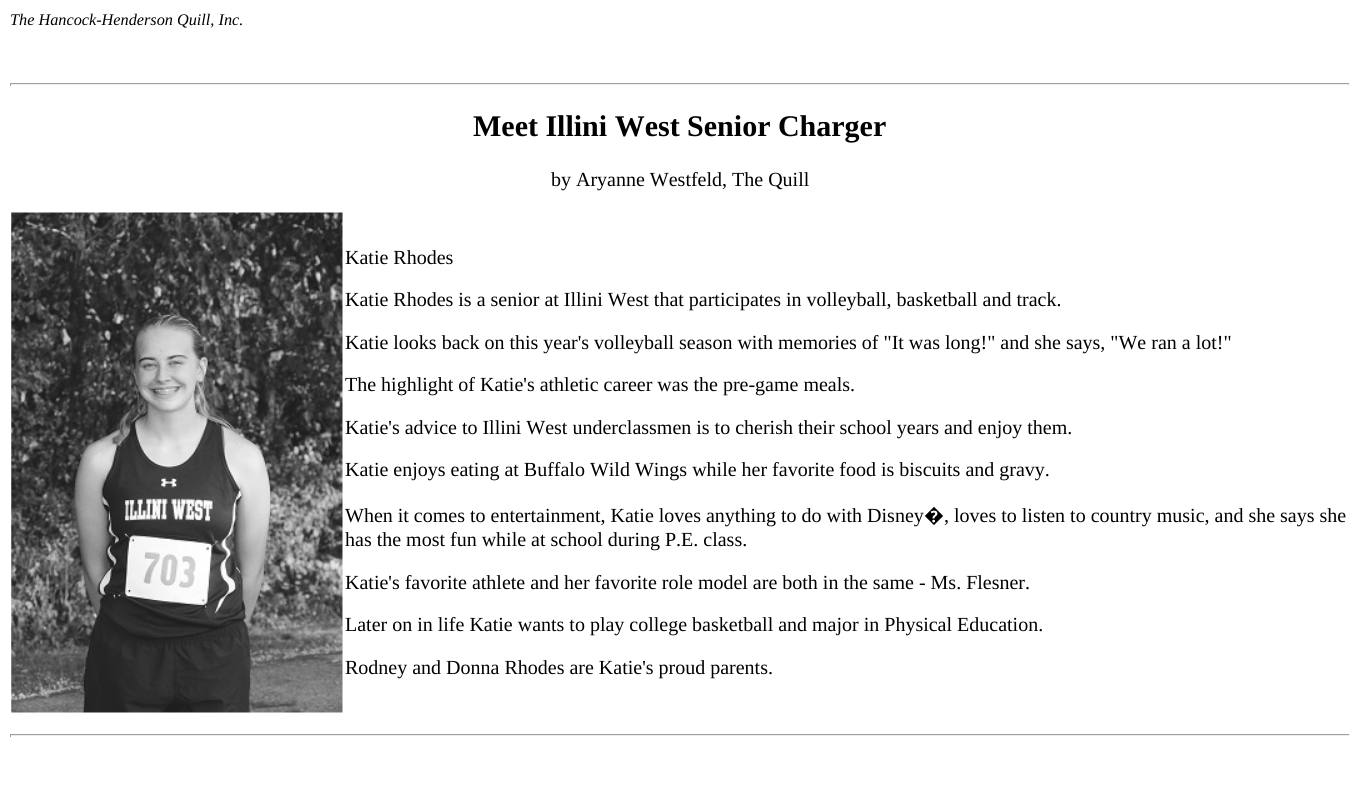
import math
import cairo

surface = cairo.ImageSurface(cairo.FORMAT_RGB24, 1360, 801)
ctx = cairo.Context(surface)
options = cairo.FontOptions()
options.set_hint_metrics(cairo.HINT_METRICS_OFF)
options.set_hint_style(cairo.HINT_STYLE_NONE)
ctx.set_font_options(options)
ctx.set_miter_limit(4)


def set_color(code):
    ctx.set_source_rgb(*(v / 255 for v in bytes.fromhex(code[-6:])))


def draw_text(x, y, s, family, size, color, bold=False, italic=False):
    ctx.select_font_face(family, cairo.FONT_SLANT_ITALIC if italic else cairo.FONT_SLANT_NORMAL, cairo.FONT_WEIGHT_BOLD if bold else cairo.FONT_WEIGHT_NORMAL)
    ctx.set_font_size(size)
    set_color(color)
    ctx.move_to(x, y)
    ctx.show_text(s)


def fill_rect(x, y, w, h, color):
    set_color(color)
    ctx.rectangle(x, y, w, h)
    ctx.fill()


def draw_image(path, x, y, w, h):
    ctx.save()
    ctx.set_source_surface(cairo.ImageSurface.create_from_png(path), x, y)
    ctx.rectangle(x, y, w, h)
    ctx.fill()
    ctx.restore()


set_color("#ffffff")
ctx.paint()
draw_text(10, 25, "The Hancock-Henderson Quill, Inc.", "Liberation Serif", 16.25, "#000000", italic=True)
fill_rect(10, 83, 1340, 1, "#9f9f9f")
fill_rect(1349, 83, 1, 3, "#eeeeee")
fill_rect(10, 84, 1340, 1, "#eeeeee")
fill_rect(10, 83, 1, 3, "#9f9f9f")
draw_text(473, 136, "Meet Illini West Senior Charger", "Liberation Serif", 30, "#000000", bold=True)
draw_text(551, 186, "by Aryanne Westfeld, The Quill", "Liberation Serif", 20, "#000000")
draw_image("assets/img1.png", 11, 212, 332, 501)
draw_text(345, 264, "Katie Rhodes", "Liberation Serif", 20, "#000000")
draw_text(345, 306, "Katie Rhodes is a senior at Illini West that participates in volleyball, basketball and track.", "Liberation Serif", 20, "#000000")
draw_text(345, 349, "Katie looks back on this year's volleyball season with memories of \"It was long!\" and she says, \"We ran a lot!\"", "Liberation Serif", 20, "#000000")
draw_text(345, 391, "The highlight of Katie's athletic career was the pre-game meals.", "Liberation Serif", 20, "#000000")
draw_text(345, 434, "Katie's advice to Illini West underclassmen is to cherish their school years and enjoy them.", "Liberation Serif", 20, "#000000")
draw_text(345, 476, "Katie enjoys eating at Buffalo Wild Wings while her favorite food is biscuits and gravy.", "Liberation Serif", 20, "#000000")
draw_text(345, 522, "When it comes to entertainment, Katie loves anything to do with Disney", "Liberation Serif", 20, "#000000")
draw_text(924, 522, "�", "Noto Sans", 20, "#000000")
draw_text(944, 522, ", loves to listen to country music, and she says she", "Liberation Serif", 20, "#000000")
draw_text(345, 546, "has the most fun while at school during P.E. class.", "Liberation Serif", 20, "#000000")
draw_text(345, 589, "Katie's favorite athlete and her favorite role model are both in the same - Ms. Flesner.", "Liberation Serif", 20, "#000000")
draw_text(345, 631, "Later on in life Katie wants to play college basketball and major in Physical Education.", "Liberation Serif", 20, "#000000")
draw_text(345, 674, "Rodney and Donna Rhodes are Katie's proud parents.", "Liberation Serif", 20, "#000000")
fill_rect(10, 734, 1340, 1, "#9f9f9f")
fill_rect(1349, 734, 1, 3, "#eeeeee")
fill_rect(10, 735, 1340, 1, "#eeeeee")
fill_rect(10, 734, 1, 3, "#9f9f9f")
surface.write_to_png("output.png")
